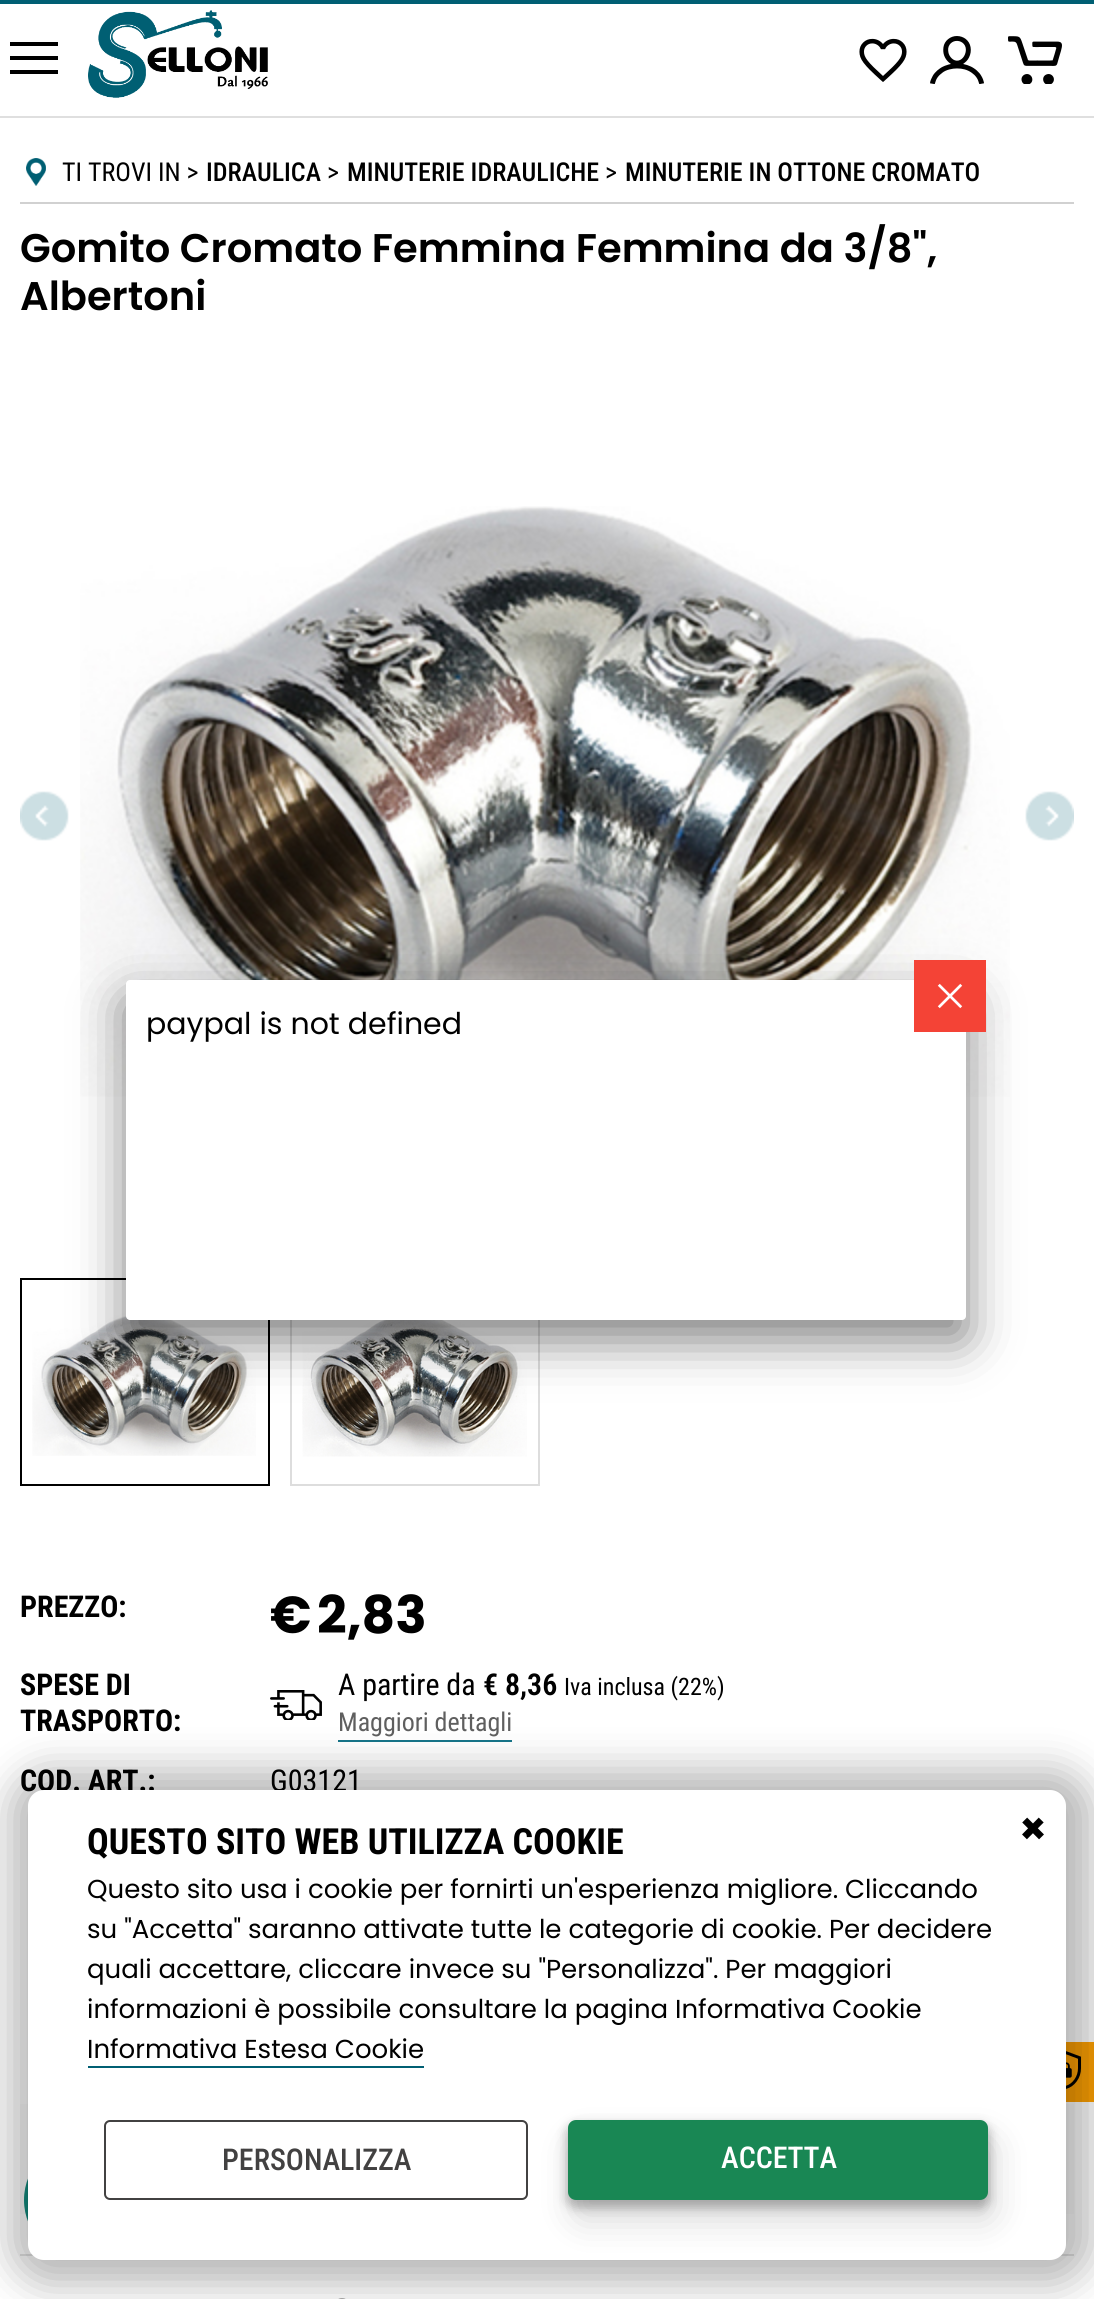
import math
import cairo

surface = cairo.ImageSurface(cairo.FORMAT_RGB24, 1094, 2299)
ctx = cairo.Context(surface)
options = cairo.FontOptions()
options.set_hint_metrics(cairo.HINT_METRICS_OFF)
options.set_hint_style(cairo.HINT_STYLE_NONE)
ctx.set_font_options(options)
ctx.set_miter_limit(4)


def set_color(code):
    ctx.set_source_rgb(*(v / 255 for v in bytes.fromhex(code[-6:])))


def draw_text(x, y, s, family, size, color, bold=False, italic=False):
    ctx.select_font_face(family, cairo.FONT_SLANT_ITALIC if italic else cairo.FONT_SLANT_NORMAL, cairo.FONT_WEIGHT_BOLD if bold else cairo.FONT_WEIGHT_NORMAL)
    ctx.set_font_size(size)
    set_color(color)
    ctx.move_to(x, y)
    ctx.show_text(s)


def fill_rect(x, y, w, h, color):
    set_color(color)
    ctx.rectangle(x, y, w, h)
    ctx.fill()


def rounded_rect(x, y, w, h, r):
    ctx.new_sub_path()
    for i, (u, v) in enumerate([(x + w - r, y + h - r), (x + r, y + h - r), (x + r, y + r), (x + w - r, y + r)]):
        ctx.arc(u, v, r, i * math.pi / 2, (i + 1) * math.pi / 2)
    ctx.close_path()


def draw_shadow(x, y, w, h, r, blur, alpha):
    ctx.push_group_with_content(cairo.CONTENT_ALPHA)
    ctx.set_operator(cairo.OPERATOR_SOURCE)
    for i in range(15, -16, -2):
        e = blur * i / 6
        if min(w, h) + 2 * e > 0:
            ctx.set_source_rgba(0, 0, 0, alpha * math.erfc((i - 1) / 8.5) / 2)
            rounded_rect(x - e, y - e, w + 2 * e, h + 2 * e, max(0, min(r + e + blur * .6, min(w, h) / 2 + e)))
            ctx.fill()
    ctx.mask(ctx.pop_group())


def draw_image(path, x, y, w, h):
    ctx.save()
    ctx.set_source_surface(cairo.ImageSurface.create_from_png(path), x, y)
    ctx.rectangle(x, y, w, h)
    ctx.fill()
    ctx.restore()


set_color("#ffffff")
ctx.paint()
fill_rect(0, 0, 1094, 4, "#005f73")
fill_rect(0, 116, 1094, 2, "#dfdfdf")
set_color("#000000")
ctx.new_path()
ctx.move_to(10, 74)
ctx.line_to(10, 70)
ctx.line_to(58, 70)
ctx.line_to(58, 74)
ctx.close_path()
ctx.move_to(10, 60)
ctx.line_to(10, 56)
ctx.line_to(58, 56)
ctx.line_to(58, 60)
ctx.close_path()
ctx.move_to(10, 46)
ctx.line_to(10, 42)
ctx.line_to(58, 42)
ctx.line_to(58, 46)
ctx.close_path()
ctx.fill()
draw_image("assets/img1.png", 88, 10, 180, 88)
draw_image("assets/img2.png", 859, 38, 48, 44)
draw_image("assets/img3.png", 930, 36, 54, 48)
draw_image("assets/img4.png", 1008, 36, 54, 48)
draw_image("assets/img5.png", 26, 158, 20, 28)
fill_rect(20, 202, 1054, 2, "#d1d1d1")
draw_text(62, 181, "TI TROVI IN >", "Roboto Condensed", 26, "#000000")
draw_text(206, 181, "IDRAULICA", "Roboto Condensed Medium", 26, "#000000")
draw_text(327, 181, ">", "Roboto Condensed", 26, "#000000")
draw_text(347, 181, "MINUTERIE IDRAULICHE", "Roboto Condensed Medium", 26, "#000000")
draw_text(605, 181, ">", "Roboto Condensed", 26, "#000000")
draw_text(625, 181, "MINUTERIE IN OTTONE CROMATO", "Roboto Condensed Medium", 26, "#000000")
draw_text(20, 262, "Gomito Cromato Femmina Femmina da 3/8\",", "Poppins SemiBold", 40, "#000000")
draw_text(20, 310, "Albertoni", "Poppins SemiBold", 40, "#000000")
draw_image("assets/img6.png", 80, 506, 930, 591)
ctx.rectangle(21, 1279, 248, 206)
ctx.stroke()
draw_image("assets/img7.png", 32, 1313, 224, 143)
ctx.rectangle(291, 1279, 248, 206)
set_color("#dddddd")
ctx.stroke()
draw_image("assets/img8.png", 302, 1320, 225, 137)
draw_text(20, 1617, "PREZZO:", "Roboto Condensed", 30, "#000000", bold=True)
draw_text(270, 1633, "€", "Poppins", 52, "#000000", bold=True)
draw_text(317, 1633, "2,83", "Poppins", 52, "#000000", bold=True)
draw_text(20, 1695, "SPESE DI", "Roboto Condensed", 30, "#000000", bold=True)
draw_text(20, 1731, "TRASPORTO:", "Roboto Condensed", 30, "#000000", bold=True)
draw_image("assets/img9.png", 270, 1690, 52, 30)
draw_text(338, 1695, "A partire da", "Roboto Condensed", 30, "#000000")
draw_text(483, 1695, "€ 8,36", "Roboto Condensed SemiBold", 30, "#000000")
draw_text(564, 1695, "Iva inclusa (22%)", "Roboto Condensed", 24, "#000000")
fill_rect(338, 1740, 174, 2, "#157589")
draw_text(338, 1731, "Maggiori dettagli", "Roboto Condensed", 26, "#5f5f5f")
draw_text(20, 1791, "COD. ART.:", "Roboto Condensed", 30, "#000000", bold=True)
draw_text(270, 1791, "G03121", "Roboto Condensed", 30, "#000000")
fill_rect(20, 2104, 8, 110, "#fbfbfb")
fill_rect(1066, 2104, 8, 110, "#fbfbfb")
fill_rect(20, 2254, 1054, 2, "#e3e3e3")
draw_image("assets/img10.png", 338, 2298, 8, 1)
draw_image("assets/img11.png", 20, 791, 49, 50)
draw_image("assets/img12.png", 1025, 791, 49, 50)
set_color("#000000")
draw_shadow(126, 1000, 840, 340, 4, 25, 0.5)
set_color("#ffffff")
rounded_rect(126, 980, 840, 340, 4)
ctx.fill()
draw_text(146, 1034, "paypal is not defined", "Poppins", 30, "#000000")
fill_rect(914, 960, 72, 72, "#f44336")
draw_image("assets/img13.png", 937, 983, 26, 26)
fill_rect(1066, 2042, 28, 60, "#ffa102")
draw_image("assets/img14.png", 1066, 2051, 15, 38)
set_color("#128c7e")
ctx.arc(84, 2200, 60, 0, 2 * math.pi)
ctx.fill()
set_color("#000000")
draw_shadow(10, 1770, 1082, 514, 38, 20, 0.28)
set_color("#ffffff")
rounded_rect(28, 1790, 1038, 470, 16)
ctx.fill()
draw_text(87, 1854, "QUESTO SITO WEB UTILIZZA COOKIE", "Roboto Condensed", 36, "#000000", bold=True)
draw_text(87, 1898, "Questo sito usa i cookie per fornirti un'esperienza migliore. Cliccando", "Poppins", 26, "#000000")
draw_text(87, 1938, "su \"Accetta\" saranno attivate tutte le categorie di cookie. Per decidere", "Poppins", 26, "#000000")
draw_text(87, 1978, "quali accettare, cliccare invece su \"Personalizza\". Per maggiori", "Poppins", 26, "#000000")
draw_text(87, 2018, "informazioni è possibile consultare la pagina Informativa Cookie", "Poppins", 26, "#000000")
draw_text(87, 2058, "Informativa Estesa Cookie", "Poppins", 26, "#000000")
fill_rect(88, 2066, 336, 2, "#005f73")
draw_text(1019, 1844, "×", "Poppins", 44, "#000000", bold=True)
rounded_rect(105, 2121, 422, 78, 5)
set_color("#424141")
ctx.stroke()
draw_text(222, 2170, "PERSONALIZZA", "Roboto Condensed Medium", 30, "#424141")
set_color("#000000")
draw_shadow(566, 2124, 424, 84, 10, 5, 0.25)
draw_shadow(574, 2140, 420, 80, 8, 18, 0.15)
set_color("#198754")
rounded_rect(568, 2120, 420, 80, 8)
ctx.fill()
draw_text(721, 2168, "ACCETTA", "Roboto Condensed Medium", 30, "#ffffff")
surface.write_to_png("output.png")
